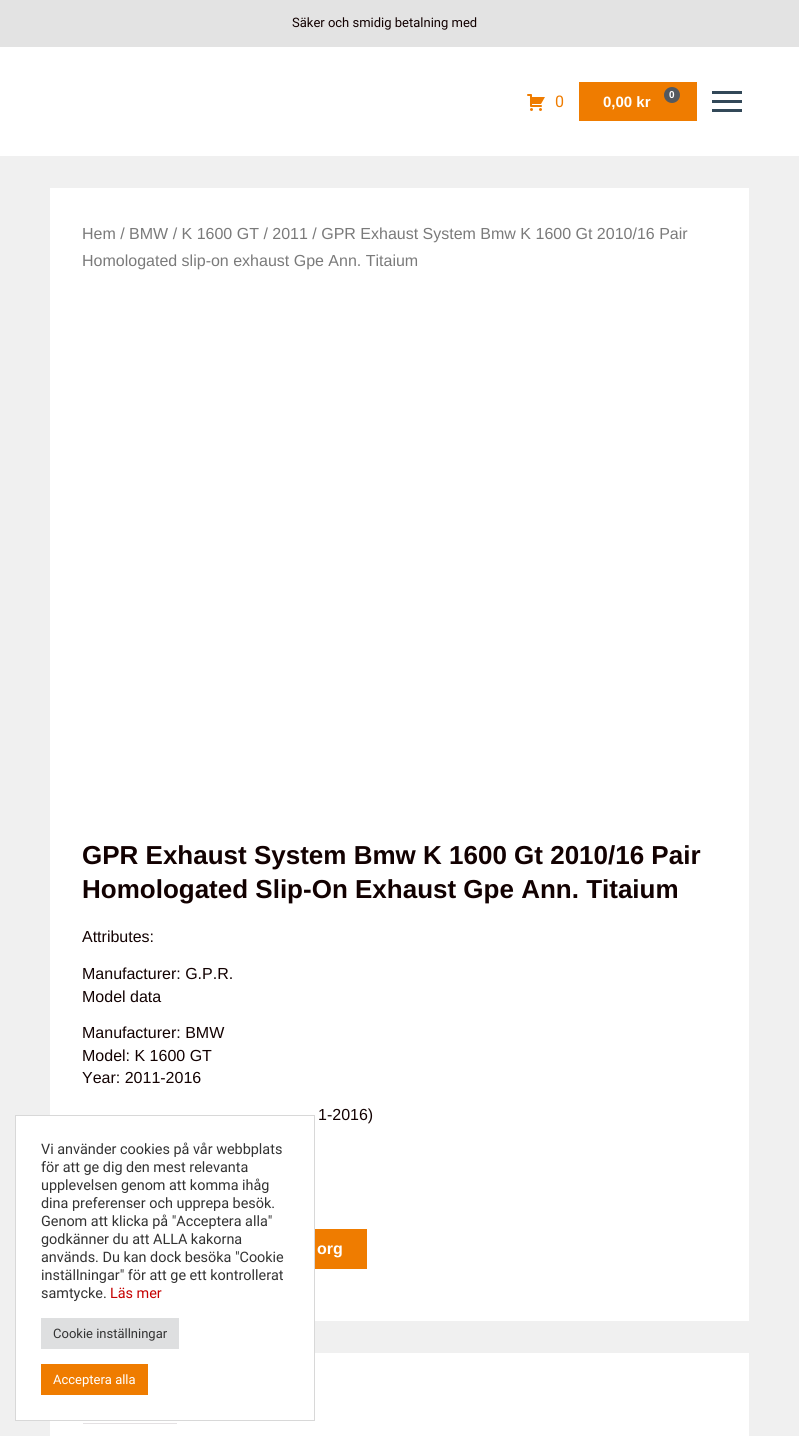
import math
import cairo

surface = cairo.ImageSurface(cairo.FORMAT_RGB24, 799, 1436)
ctx = cairo.Context(surface)
options = cairo.FontOptions()
options.set_hint_metrics(cairo.HINT_METRICS_OFF)
options.set_hint_style(cairo.HINT_STYLE_NONE)
ctx.set_font_options(options)
ctx.set_miter_limit(4)


def set_color(code):
    ctx.set_source_rgb(*(v / 255 for v in bytes.fromhex(code[-6:])))


def draw_text(x, y, s, family, size, color, bold=False, italic=False):
    ctx.select_font_face(family, cairo.FONT_SLANT_ITALIC if italic else cairo.FONT_SLANT_NORMAL, cairo.FONT_WEIGHT_BOLD if bold else cairo.FONT_WEIGHT_NORMAL)
    ctx.set_font_size(size)
    set_color(color)
    ctx.move_to(x, y)
    ctx.show_text(s)


def fill_rect(x, y, w, h, color):
    set_color(color)
    ctx.rectangle(x, y, w, h)
    ctx.fill()


def draw_image(path, x, y, w, h):
    ctx.save()
    ctx.set_source_surface(cairo.ImageSurface.create_from_png(path), x, y)
    ctx.rectangle(x, y, w, h)
    ctx.fill()
    ctx.restore()


set_color("#f0f0f0")
ctx.paint()
fill_rect(0, 0, 799, 47, "#e3e3e3")
draw_text(292, 27, "Säker och smidig betalning med", "Roboto", 13, "#120101")
fill_rect(0, 47, 799, 109, "#ffffff")
draw_image("assets/img1.png", 527, 94, 18, 17)
draw_text(555, 107, "0", "Roboto", 16, "#ef7c00")
fill_rect(579, 82, 118, 39, "#ef7c00")
set_color("#54595f")
ctx.new_path()
ctx.arc(672, 95, 8, 0, 2 * math.pi)
ctx.fill()
draw_text(669, 98, "0", "Liberation Sans", 10, "#ffffff", bold=True)
draw_text(603, 107, "0,00 kr", "Liberation Sans", 15, "#ffffff", bold=True)
fill_rect(712, 91, 30, 3, "#324858")
fill_rect(712, 100, 30, 3, "#324858")
fill_rect(712, 109, 30, 3, "#324858")
fill_rect(50, 188, 699, 1133, "#ffffff")
draw_text(82, 239, "Hem / BMW / K 1600 GT / 2011 / GPR Exhaust System Bmw K 1600 Gt 2010/16 Pair", "Liberation Sans", 16, "#7a7a7a")
draw_text(82, 266, "Homologated slip-on exhaust Gpe Ann. Titaium", "Liberation Sans", 16, "#7a7a7a")
draw_text(82, 864, "GPR Exhaust System Bmw K 1600 Gt 2010/16 Pair", "Liberation Sans", 26, "#120101", bold=True)
draw_text(82, 898, "Homologated Slip-On Exhaust Gpe Ann. Titaium", "Liberation Sans", 26, "#120101", bold=True)
draw_text(82, 942, "Attributes:", "Liberation Sans", 16, "#120101")
draw_text(82, 979, "Manufacturer: G.P.R.", "Liberation Sans", 16, "#120101")
draw_text(82, 1002, "Model data", "Liberation Sans", 16, "#120101")
draw_text(82, 1038, "Manufacturer: BMW", "Liberation Sans", 16, "#120101")
draw_text(82, 1061, "Model: K 1600 GT", "Liberation Sans", 16, "#120101")
draw_text(82, 1083, "Year: 2011-2016", "Liberation Sans", 16, "#120101")
draw_text(318, 1120, "1-2016)", "Liberation Sans", 16, "#120101")
fill_rect(315, 1229, 52, 40, "#ef7c00")
draw_text(317, 1254, "org", "Liberation Sans", 16, "#ffffff", bold=True)
fill_rect(50, 1353, 699, 83, "#ffffff")
fill_rect(82, 1423, 95, 1, "#e4e1e3")
fill_rect(82, 1421, 1, 3, "#ffffff")
ctx.rectangle(15.5, 1115.5, 299, 305)
ctx.fill_preserve()
set_color("#d8d8d8")
ctx.set_line_width(1)
ctx.stroke()
draw_text(41, 1154, "Vi använder cookies på vår webbplats", "Roboto", 14.4, "#333333")
draw_text(41, 1172, "för att ge dig den mest relevanta", "Roboto", 14.4, "#333333")
draw_text(41, 1190, "upplevelsen genom att komma ihåg", "Roboto", 14.4, "#333333")
draw_text(41, 1208, "dina preferenser och upprepa besök.", "Roboto", 14.4, "#333333")
draw_text(41, 1226, "Genom att klicka på \"Acceptera alla\"", "Roboto", 14.4, "#333333")
draw_text(41, 1244, "godkänner du att ALLA kakorna", "Roboto", 14.4, "#333333")
draw_text(41, 1262, "används. Du kan dock besöka \"Cookie", "Roboto", 14.4, "#333333")
draw_text(41, 1280, "inställningar\" för att ge ett kontrollerat", "Roboto", 14.4, "#333333")
draw_text(41, 1298, "samtycke.", "Roboto", 14.4, "#333333")
draw_text(110, 1298, "Läs mer", "Roboto", 14.4, "#c50000")
fill_rect(41, 1318, 138, 31, "#dedfe0")
draw_text(53, 1338, "Cookie inställningar", "Roboto", 13, "#333333")
fill_rect(41, 1364, 107, 31, "#ef7c00")
draw_text(53, 1384, "Acceptera alla", "Roboto", 13, "#ffffff")
surface.write_to_png("output.png")
